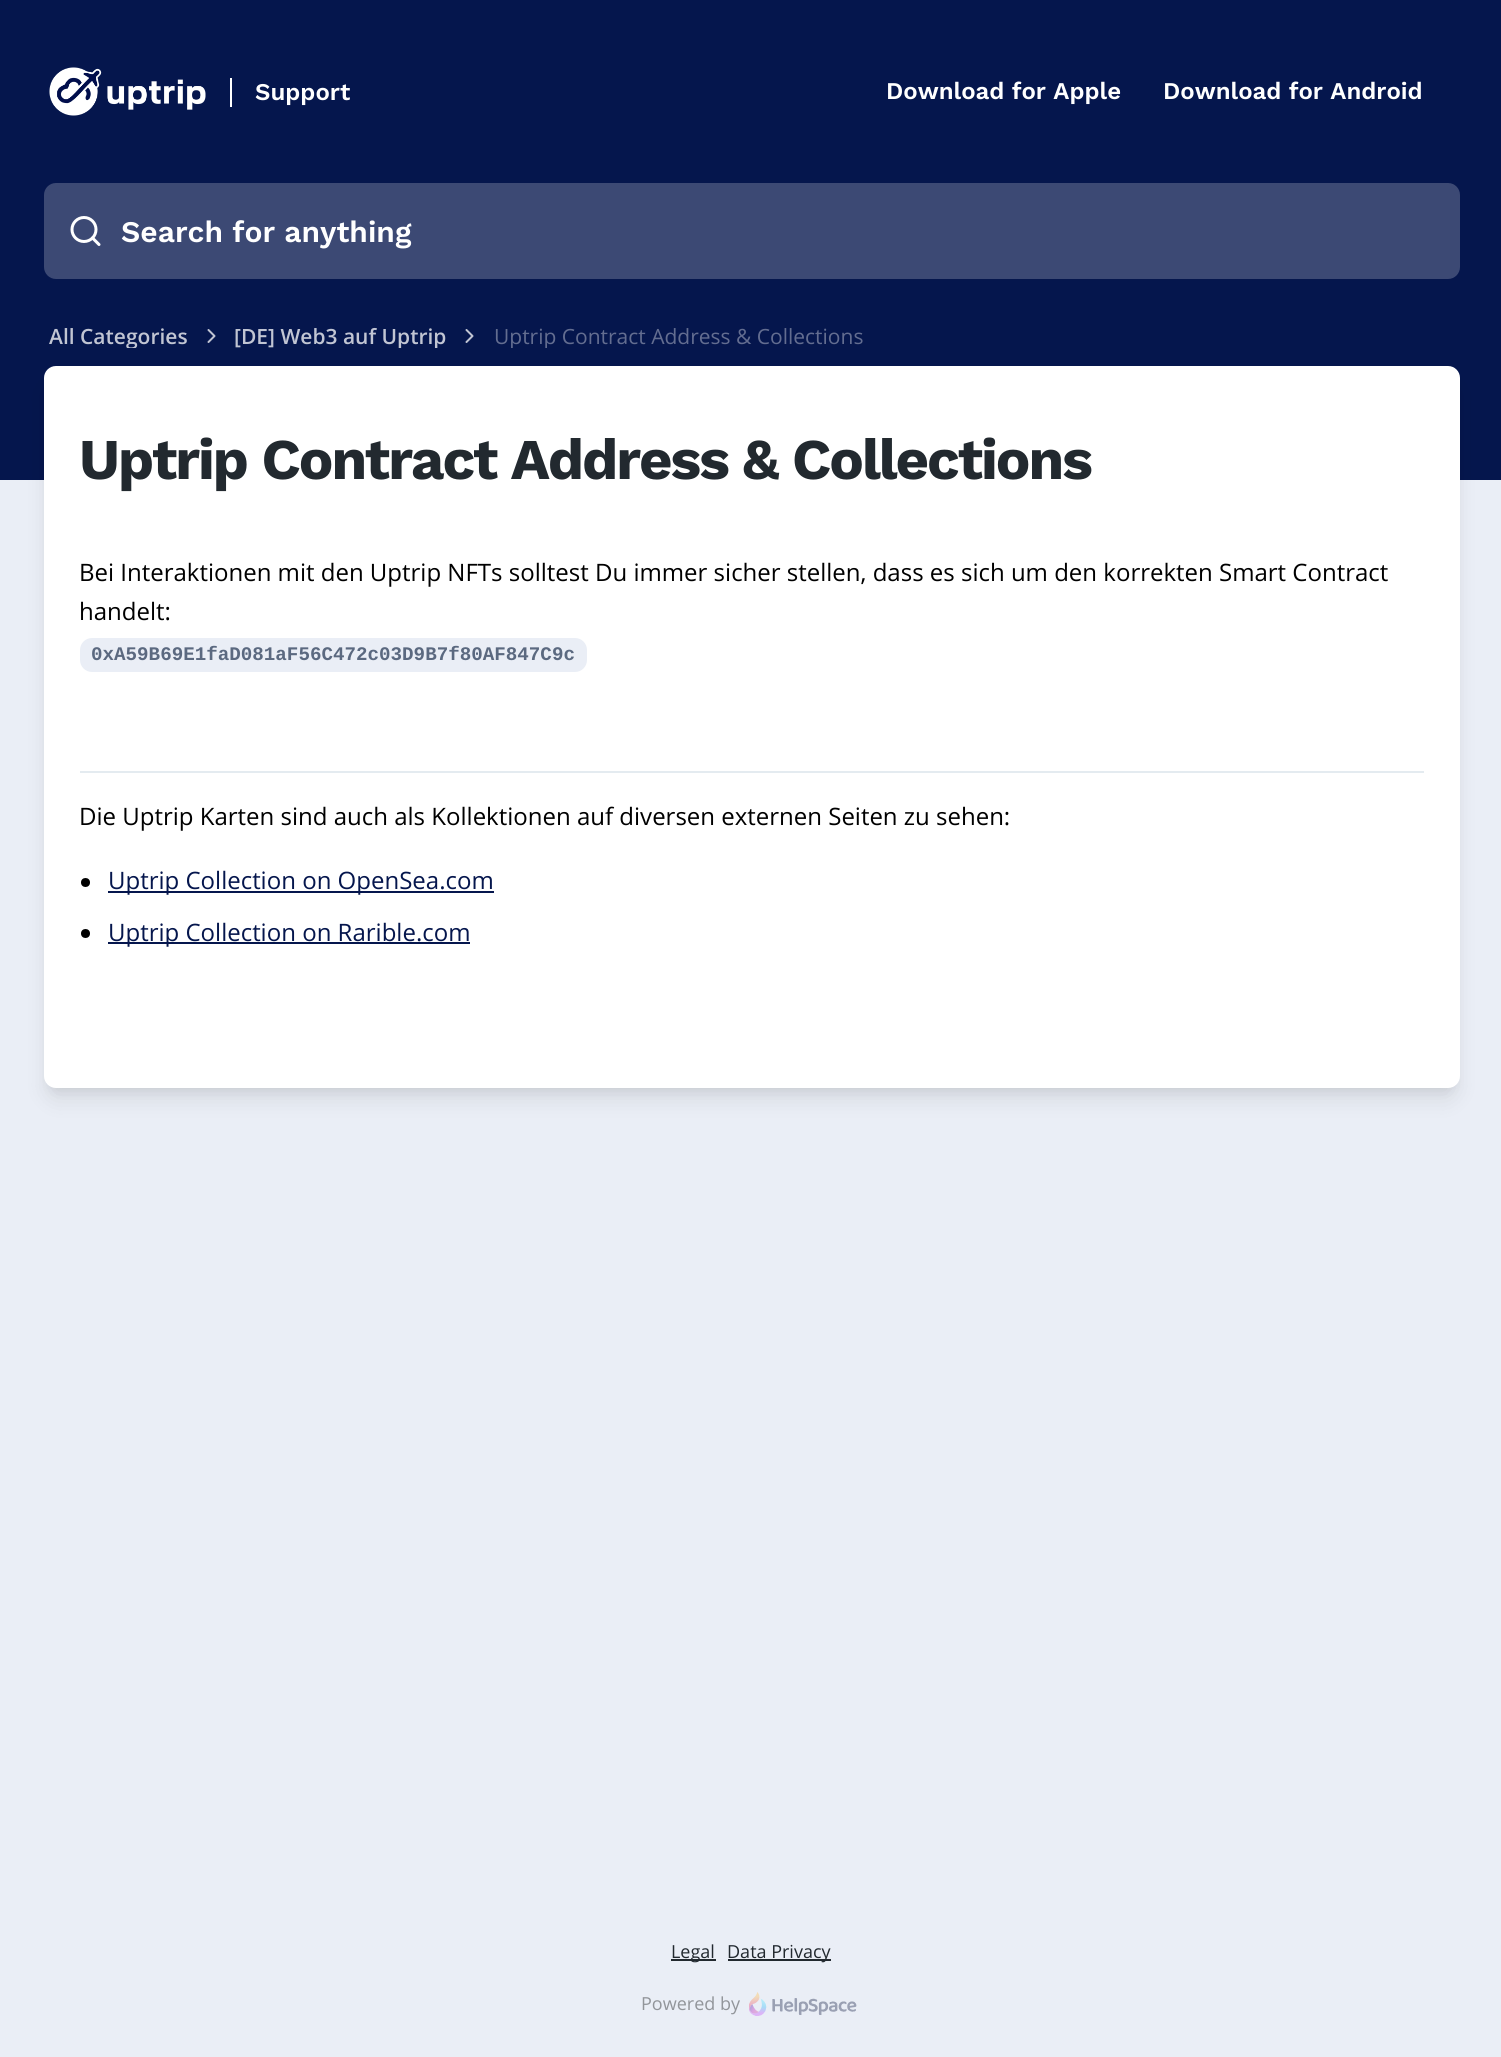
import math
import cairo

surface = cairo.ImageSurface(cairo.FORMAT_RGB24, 1501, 2057)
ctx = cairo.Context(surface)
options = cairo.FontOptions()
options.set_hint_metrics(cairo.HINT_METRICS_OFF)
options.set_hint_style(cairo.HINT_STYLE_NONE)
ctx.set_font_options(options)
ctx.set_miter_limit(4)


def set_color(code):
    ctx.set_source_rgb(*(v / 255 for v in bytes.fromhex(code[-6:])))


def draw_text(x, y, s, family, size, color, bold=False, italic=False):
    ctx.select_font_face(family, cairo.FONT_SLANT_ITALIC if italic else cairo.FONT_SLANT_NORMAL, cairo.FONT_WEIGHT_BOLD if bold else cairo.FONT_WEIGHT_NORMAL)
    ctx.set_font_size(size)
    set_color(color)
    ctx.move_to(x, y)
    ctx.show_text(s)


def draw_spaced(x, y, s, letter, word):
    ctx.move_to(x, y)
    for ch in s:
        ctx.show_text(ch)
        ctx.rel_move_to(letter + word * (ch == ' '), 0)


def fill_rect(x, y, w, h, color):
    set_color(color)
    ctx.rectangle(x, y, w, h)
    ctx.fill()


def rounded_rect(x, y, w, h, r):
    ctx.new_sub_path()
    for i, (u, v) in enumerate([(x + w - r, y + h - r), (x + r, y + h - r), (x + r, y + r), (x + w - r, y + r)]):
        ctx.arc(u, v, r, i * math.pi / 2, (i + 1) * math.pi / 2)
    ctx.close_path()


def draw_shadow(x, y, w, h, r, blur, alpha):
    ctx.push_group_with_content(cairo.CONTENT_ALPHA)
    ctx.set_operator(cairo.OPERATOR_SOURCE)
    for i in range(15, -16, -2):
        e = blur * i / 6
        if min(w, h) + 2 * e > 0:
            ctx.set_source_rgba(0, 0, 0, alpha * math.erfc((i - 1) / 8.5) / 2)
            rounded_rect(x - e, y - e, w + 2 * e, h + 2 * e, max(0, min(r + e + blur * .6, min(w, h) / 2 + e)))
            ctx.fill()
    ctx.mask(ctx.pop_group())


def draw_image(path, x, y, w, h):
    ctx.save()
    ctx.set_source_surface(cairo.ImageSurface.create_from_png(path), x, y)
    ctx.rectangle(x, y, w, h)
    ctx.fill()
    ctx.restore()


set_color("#eaeef6")
ctx.paint()
fill_rect(0, 0, 1501, 480, "#05164d")
draw_image("assets/img1.png", 49, 67, 157, 49)
fill_rect(230, 78, 2, 29, "#ffffff")
draw_text(255, 100, "Support", "Work Sans SemiBold", 24, "#ffffff")
draw_text(886, 99, "Download for Apple", "Work Sans SemiBold", 24, "#ffffff")
draw_text(1163, 99, "Download for Android", "Work Sans SemiBold", 24, "#ffffff")
ctx.set_source_rgba(1, 1, 1, 0.22)
rounded_rect(44, 183, 1416, 96, 12)
ctx.fill()
ctx.arc(84, 229.5, 12, 0, 2 * math.pi)
set_color("#ffffff")
ctx.set_line_width(3)
ctx.stroke()
ctx.new_path()
ctx.move_to(99, 244.5)
ctx.line_to(92.5, 238)
ctx.set_line_cap(cairo.LINE_CAP_ROUND)
ctx.set_line_join(cairo.LINE_JOIN_ROUND)
ctx.stroke()
draw_text(121, 242, "Search for anything", "Work Sans SemiBold", 30, "#ffffff")
ctx.save()
ctx.rectangle(44, 324, 1416, 24)
ctx.clip()
draw_text(49, 344, "All Categories", "Open Sans SemiBold", 21, "#c1c5d3")
ctx.restore()
ctx.new_path()
ctx.move_to(208.5, 342)
ctx.line_to(214.5, 336)
ctx.line_to(208.5, 330)
set_color("#c1c5d3")
ctx.set_line_width(2)
ctx.stroke()
ctx.save()
ctx.rectangle(44, 324, 1416, 24)
ctx.clip()
draw_text(234, 344, "[DE] Web3 auf Uptrip", "Open Sans SemiBold", 21, "#c1c5d3")
ctx.restore()
ctx.new_path()
ctx.move_to(466.5, 342)
ctx.line_to(472.5, 336)
ctx.line_to(466.5, 330)
ctx.stroke()
ctx.save()
ctx.rectangle(44, 324, 1416, 24)
ctx.clip()
draw_text(494, 344, "Uptrip Contract Address & Collections", "Open Sans", 21, "#636d90")
ctx.restore()
set_color("#000000")
draw_shadow(47, 375, 1410, 716, 9, 4.5, 0.05)
draw_shadow(48, 386, 1407, 712, 8, 11, 0.1)
set_color("#ffffff")
rounded_rect(44, 366, 1416, 722, 12)
ctx.fill()
ctx.select_font_face("Work Sans", cairo.FONT_SLANT_NORMAL, cairo.FONT_WEIGHT_BOLD)
ctx.set_font_size(57.6)
set_color("#22292f")
draw_spaced(79, 479, "Uptrip Contract Address & Collections", -2, 0)
draw_text(79, 581, "Bei Interaktionen mit den Uptrip NFTs solltest Du immer sicher stellen, dass es sich um den korrekten Smart Contract", "Open Sans", 24, "#000000")
draw_text(79, 620, "handelt:", "Open Sans", 24, "#000000")
set_color("#eaeef6")
rounded_rect(80, 638, 507, 34, 12)
ctx.fill()
draw_text(91, 660, "0xA59B69E1faD081aF56C472c03D9B7f80AF847C9c", "Liberation Mono", 19.2, "#5b6980", bold=True)
fill_rect(80, 771, 1344, 2, "#e4ebf0")
draw_text(79, 825, "Die Uptrip Karten sind auch als Kollektionen auf diversen externen Seiten zu sehen:", "Open Sans", 24, "#000000")
ctx.new_path()
ctx.arc(85.5, 882.5, 4.5, 0, 2 * math.pi)
ctx.fill()
fill_rect(108, 891, 386, 2, "#05164d")
draw_text(108, 889, "Uptrip Collection on OpenSea.com", "Open Sans", 24, "#05164d")
set_color("#000000")
ctx.new_path()
ctx.arc(85.5, 933.5, 4.5, 0, 2 * math.pi)
ctx.fill()
fill_rect(108, 942, 362, 2, "#05164d")
draw_text(108, 941, "Uptrip Collection on Rarible.com", "Open Sans", 24, "#05164d")
fill_rect(671, 1959, 45, 2, "#22292f")
draw_text(671, 1958, "Legal", "Open Sans", 18, "#22292f")
fill_rect(728, 1959, 103, 2, "#22292f")
draw_text(727, 1958, "Data Privacy", "Open Sans", 18, "#22292f")
draw_text(641, 2010, "Powered by", "Open Sans", 18, "#92959a")
draw_image("assets/img2.png", 749, 1992, 108, 24)
surface.write_to_png("output.png")
